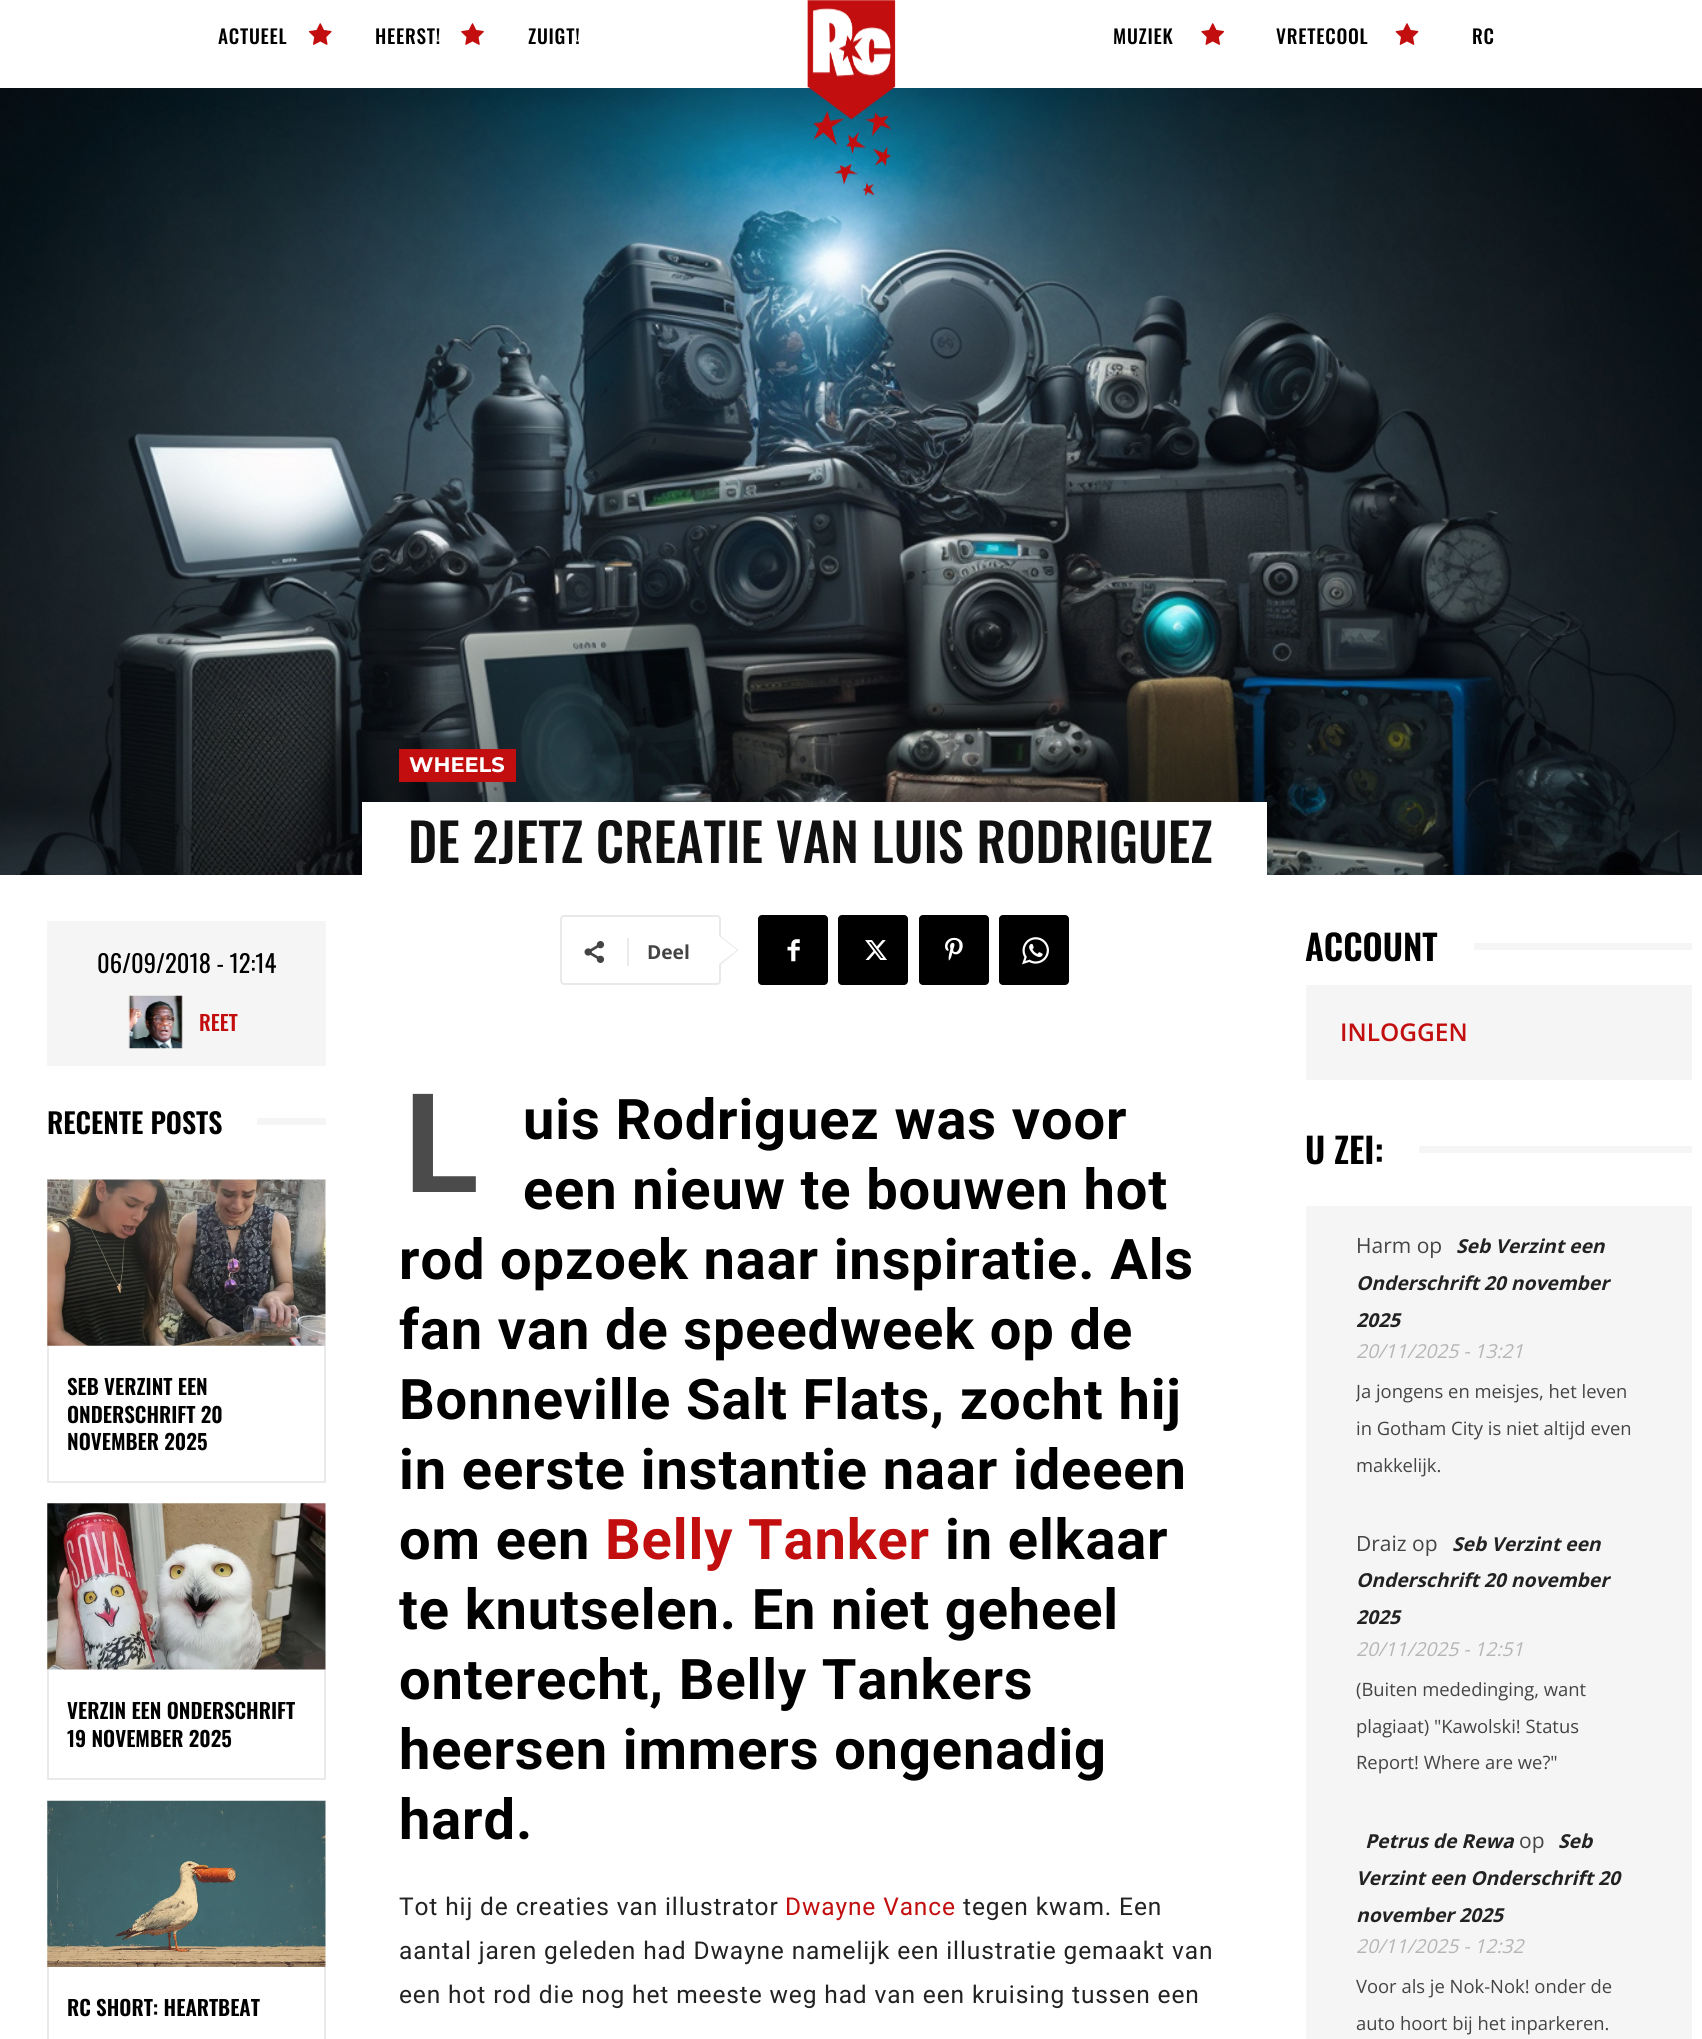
import math
import cairo

surface = cairo.ImageSurface(cairo.FORMAT_RGB24, 1702, 2039)
ctx = cairo.Context(surface)
options = cairo.FontOptions()
options.set_hint_metrics(cairo.HINT_METRICS_OFF)
options.set_hint_style(cairo.HINT_STYLE_NONE)
ctx.set_font_options(options)
ctx.set_miter_limit(4)


def set_color(code):
    ctx.set_source_rgb(*(v / 255 for v in bytes.fromhex(code[-6:])))


def draw_text(x, y, s, family, size, color, bold=False, italic=False):
    ctx.select_font_face(family, cairo.FONT_SLANT_ITALIC if italic else cairo.FONT_SLANT_NORMAL, cairo.FONT_WEIGHT_BOLD if bold else cairo.FONT_WEIGHT_NORMAL)
    ctx.set_font_size(size)
    set_color(color)
    ctx.move_to(x, y)
    ctx.show_text(s)


def draw_spaced(x, y, s, letter, word):
    ctx.move_to(x, y)
    for ch in s:
        ctx.show_text(ch)
        ctx.rel_move_to(letter + word * (ch == ' '), 0)


def fill_rect(x, y, w, h, color):
    set_color(color)
    ctx.rectangle(x, y, w, h)
    ctx.fill()


def rounded_rect(x, y, w, h, r):
    ctx.new_sub_path()
    for i, (u, v) in enumerate([(x + w - r, y + h - r), (x + r, y + h - r), (x + r, y + r), (x + w - r, y + r)]):
        ctx.arc(u, v, r, i * math.pi / 2, (i + 1) * math.pi / 2)
    ctx.close_path()


def draw_image(path, x, y, w, h):
    ctx.save()
    ctx.set_source_surface(cairo.ImageSurface.create_from_png(path), x, y)
    ctx.rectangle(x, y, w, h)
    ctx.fill()
    ctx.restore()


set_color("#ffffff")
ctx.paint()
ctx.select_font_face("Oswald Medium")
ctx.set_font_size(19.25)
set_color("#000000")
draw_spaced(218, 44, "ACTUEEL", 0.75, 0)
draw_image("assets/img1.png", 308, 23, 24, 22)
draw_spaced(375, 44, "HEERST!", 0.75, 0)
draw_image("assets/img2.png", 461, 23, 23, 22)
draw_spaced(528, 44, "ZUIGT!", 0.75, 0)
draw_image("assets/img6.png", 0, 88, 1702, 787)
draw_image("assets/img3.png", 807, 0, 89, 197)
draw_spaced(1113, 44, "MUZIEK", 0.75, 0)
draw_image("assets/img4.png", 1201, 23, 24, 22)
draw_spaced(1276, 44, "VRETECOOL", 0.75, 0)
draw_image("assets/img5.png", 1395, 23, 24, 22)
draw_spaced(1472, 44, "RC", 0.75, 0)
fill_rect(47, 921, 279, 145, "#f5f5f5")
draw_text(97, 973, "06/09/2018 - 12:14", "Oswald", 24.5, "#000000")
draw_image("assets/img7.png", 128, 995, 55, 54)
draw_text(199, 1031, "REET", "Oswald Medium", 21, "#c20e0e")
draw_text(47, 1134, "RECENTE POSTS", "Oswald SemiBold", 28, "#000000")
fill_rect(257, 1118, 69, 7, "#f5f5f5")
draw_image("assets/img8.png", 47, 1179, 279, 167)
fill_rect(324, 1346, 2, 136, "#eaeaea")
fill_rect(47, 1481, 279, 2, "#eaeaea")
fill_rect(47, 1346, 2, 136, "#eaeaea")
draw_text(67, 1395, "SEB VERZINT EEN", "Oswald SemiBold", 21, "#000000")
draw_text(67, 1423, "ONDERSCHRIFT 20", "Oswald SemiBold", 21, "#000000")
draw_text(67, 1450, "NOVEMBER 2025", "Oswald SemiBold", 21, "#000000")
draw_image("assets/img9.png", 47, 1503, 279, 167)
fill_rect(324, 1670, 2, 110, "#eaeaea")
fill_rect(47, 1778, 279, 2, "#eaeaea")
fill_rect(47, 1670, 2, 110, "#eaeaea")
draw_text(67, 1719, "VERZIN EEN ONDERSCHRIFT", "Oswald SemiBold", 21, "#000000")
draw_text(67, 1747, "19 NOVEMBER 2025", "Oswald SemiBold", 21, "#000000")
draw_image("assets/img10.png", 47, 1800, 279, 167)
fill_rect(324, 1967, 2, 72, "#eaeaea")
fill_rect(47, 1967, 2, 72, "#eaeaea")
draw_text(67, 2016, "RC SHORT: HEARTBEAT", "Oswald SemiBold", 21, "#000000")
fill_rect(399, 749, 117, 33, "#c20e0e")
draw_text(409, 772, "WHEELS", "Montserrat", 21, "#ffffff", bold=True)
fill_rect(362, 802, 905, 73, "#ffffff")
draw_text(408, 863, "DE 2JETZ CREATIE VAN LUIS RODRIGUEZ", "Oswald Medium", 52.5, "#111111")
rounded_rect(561, 916, 159, 68, 3)
set_color("#e9e9e9")
ctx.stroke()
ctx.new_path()
ctx.move_to(719, 966)
ctx.line_to(719, 934.5)
ctx.line_to(738.5, 950)
ctx.close_path()
ctx.fill()
draw_image("assets/img11.png", 584, 941, 21, 22)
fill_rect(627, 938, 2, 28, "#ebebeb")
draw_text(647, 959, "Deel", "Open Sans", 19.25, "#444444", bold=True)
set_color("#ffffff")
ctx.new_path()
ctx.move_to(719, 964)
ctx.line_to(719, 936)
ctx.line_to(737, 950)
ctx.close_path()
ctx.fill()
set_color("#000000")
rounded_rect(758, 915, 70, 70, 4)
ctx.fill()
draw_image("assets/img12.png", 787, 939, 13, 23)
rounded_rect(838, 915, 70, 70, 4)
ctx.fill()
draw_image("assets/img13.png", 865, 940, 22, 20)
rounded_rect(919, 915, 70, 70, 4)
ctx.fill()
draw_image("assets/img14.png", 945, 937, 18, 24)
rounded_rect(999, 915, 70, 70, 4)
ctx.fill()
draw_image("assets/img15.png", 1022, 937, 27, 28)
ctx.select_font_face("Roboto", cairo.FONT_SLANT_NORMAL, cairo.FONT_WEIGHT_BOLD)
ctx.set_font_size(138)
set_color("#4b4b4b")
draw_spaced(404, 1192, "L", 0.88, 0)
ctx.set_font_size(56)
set_color("#000000")
draw_spaced(523, 1139, "uis Rodriguez was voor", 0.88, 0)
draw_spaced(523, 1209, "een nieuw te bouwen hot", 0.88, 0)
draw_spaced(399, 1279, "rod opzoek naar inspiratie. Als", 0.88, 0)
draw_spaced(399, 1349, "fan van de speedweek op de", 0.88, 0)
draw_spaced(399, 1419, "Bonneville Salt Flats, zocht hij", 0.88, 0)
draw_spaced(399, 1489, "in eerste instantie naar ideeen", 0.88, 0)
draw_spaced(399, 1559, "om een", 0.88, 0)
set_color("#c20e0e")
draw_spaced(605, 1559, "Belly Tanker", 0.88, 0)
set_color("#000000")
draw_spaced(945, 1559, "in elkaar", 0.88, 0)
draw_spaced(399, 1629, "te knutselen. En niet geheel", 0.88, 0)
draw_spaced(399, 1699, "onterecht, Belly Tankers", 0.88, 0)
draw_spaced(399, 1769, "heersen immers ongenadig", 0.88, 0)
draw_spaced(399, 1839, "hard.", 0.88, 0)
ctx.select_font_face("Roboto")
ctx.set_font_size(24.5)
set_color("#222222")
draw_spaced(399, 1915, "Tot hij de creaties van illustrator", 0.88, 0)
set_color("#c20e0e")
draw_spaced(785, 1915, "Dwayne Vance", 0.88, 0)
set_color("#222222")
draw_spaced(963, 1915, "tegen kwam. Een", 0.88, 0)
draw_spaced(399, 1959, "aantal jaren geleden had Dwayne namelijk een illustratie gemaakt van", 0.88, 0)
draw_spaced(399, 2003, "een hot rod die nog het meeste weg had van een kruising tussen een", 0.88, 0)
draw_text(1305, 961, "ACCOUNT", "Oswald SemiBold", 35, "#000000")
fill_rect(1474, 943, 218, 7, "#f5f5f5")
fill_rect(1306, 985, 386, 95, "#f5f5f5")
draw_text(1340, 1041, "INLOGGEN", "Open Sans SemiBold", 24.5, "#c20e0e")
draw_text(1305, 1164, "U ZEI:", "Oswald SemiBold", 35, "#000000")
fill_rect(1419, 1146, 273, 7, "#f5f5f5")
fill_rect(1306, 1206, 386, 833, "#f5f5f5")
draw_text(1356, 1253, "Harm op", "Open Sans", 21, "#444444")
draw_text(1456, 1253, "Seb Verzint een", "Open Sans", 19.25, "#222222", bold=True, italic=True)
draw_text(1356, 1290, "Onderschrift 20 november", "Open Sans", 19.25, "#222222", bold=True, italic=True)
draw_text(1356, 1327, "2025", "Open Sans", 19.25, "#222222", bold=True, italic=True)
draw_text(1356, 1358, "20/11/2025 - 13:21", "Open Sans", 19.25, "#b5b5b5", italic=True)
ctx.save()
ctx.rectangle(1356, 1206, 286, 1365)
ctx.clip()
draw_text(1356, 1398, "Ja jongens en meisjes, het leven", "Open Sans", 18.4, "#444444")
ctx.restore()
draw_text(1356, 1435, "in Gotham City is niet altijd even", "Open Sans", 18.4, "#444444")
draw_text(1356, 1472, "makkelijk.", "Open Sans", 18.4, "#444444")
draw_text(1356, 1551, "Draiz op", "Open Sans", 21, "#444444")
draw_text(1452, 1551, "Seb Verzint een", "Open Sans", 19.25, "#222222", bold=True, italic=True)
draw_text(1356, 1587, "Onderschrift 20 november", "Open Sans", 19.25, "#222222", bold=True, italic=True)
draw_text(1356, 1624, "2025", "Open Sans", 19.25, "#222222", bold=True, italic=True)
draw_text(1356, 1656, "20/11/2025 - 12:51", "Open Sans", 19.25, "#b5b5b5", italic=True)
draw_text(1356, 1696, "(Buiten mededinging, want", "Open Sans", 18.4, "#444444")
draw_text(1356, 1733, "plagiaat) \"Kawolski! Status", "Open Sans", 18.4, "#444444")
draw_text(1356, 1769, "Report! Where are we?\"", "Open Sans", 18.4, "#444444")
draw_text(1365, 1848, "Petrus de Rewa", "Open Sans", 19.25, "#222222", bold=True, italic=True)
draw_text(1519, 1848, "op", "Open Sans", 21, "#444444")
draw_text(1558, 1848, "Seb", "Open Sans", 19.25, "#222222", bold=True, italic=True)
draw_text(1356, 1885, "Verzint een Onderschrift 20", "Open Sans", 19.25, "#222222", bold=True, italic=True)
draw_text(1356, 1922, "november 2025", "Open Sans", 19.25, "#222222", bold=True, italic=True)
draw_text(1356, 1953, "20/11/2025 - 12:32", "Open Sans", 19.25, "#b5b5b5", italic=True)
draw_text(1356, 1993, "Voor als je Nok-Nok! onder de", "Open Sans", 18.4, "#444444")
draw_text(1356, 2030, "auto hoort bij het inparkeren.", "Open Sans", 18.4, "#444444")
surface.write_to_png("output.png")
